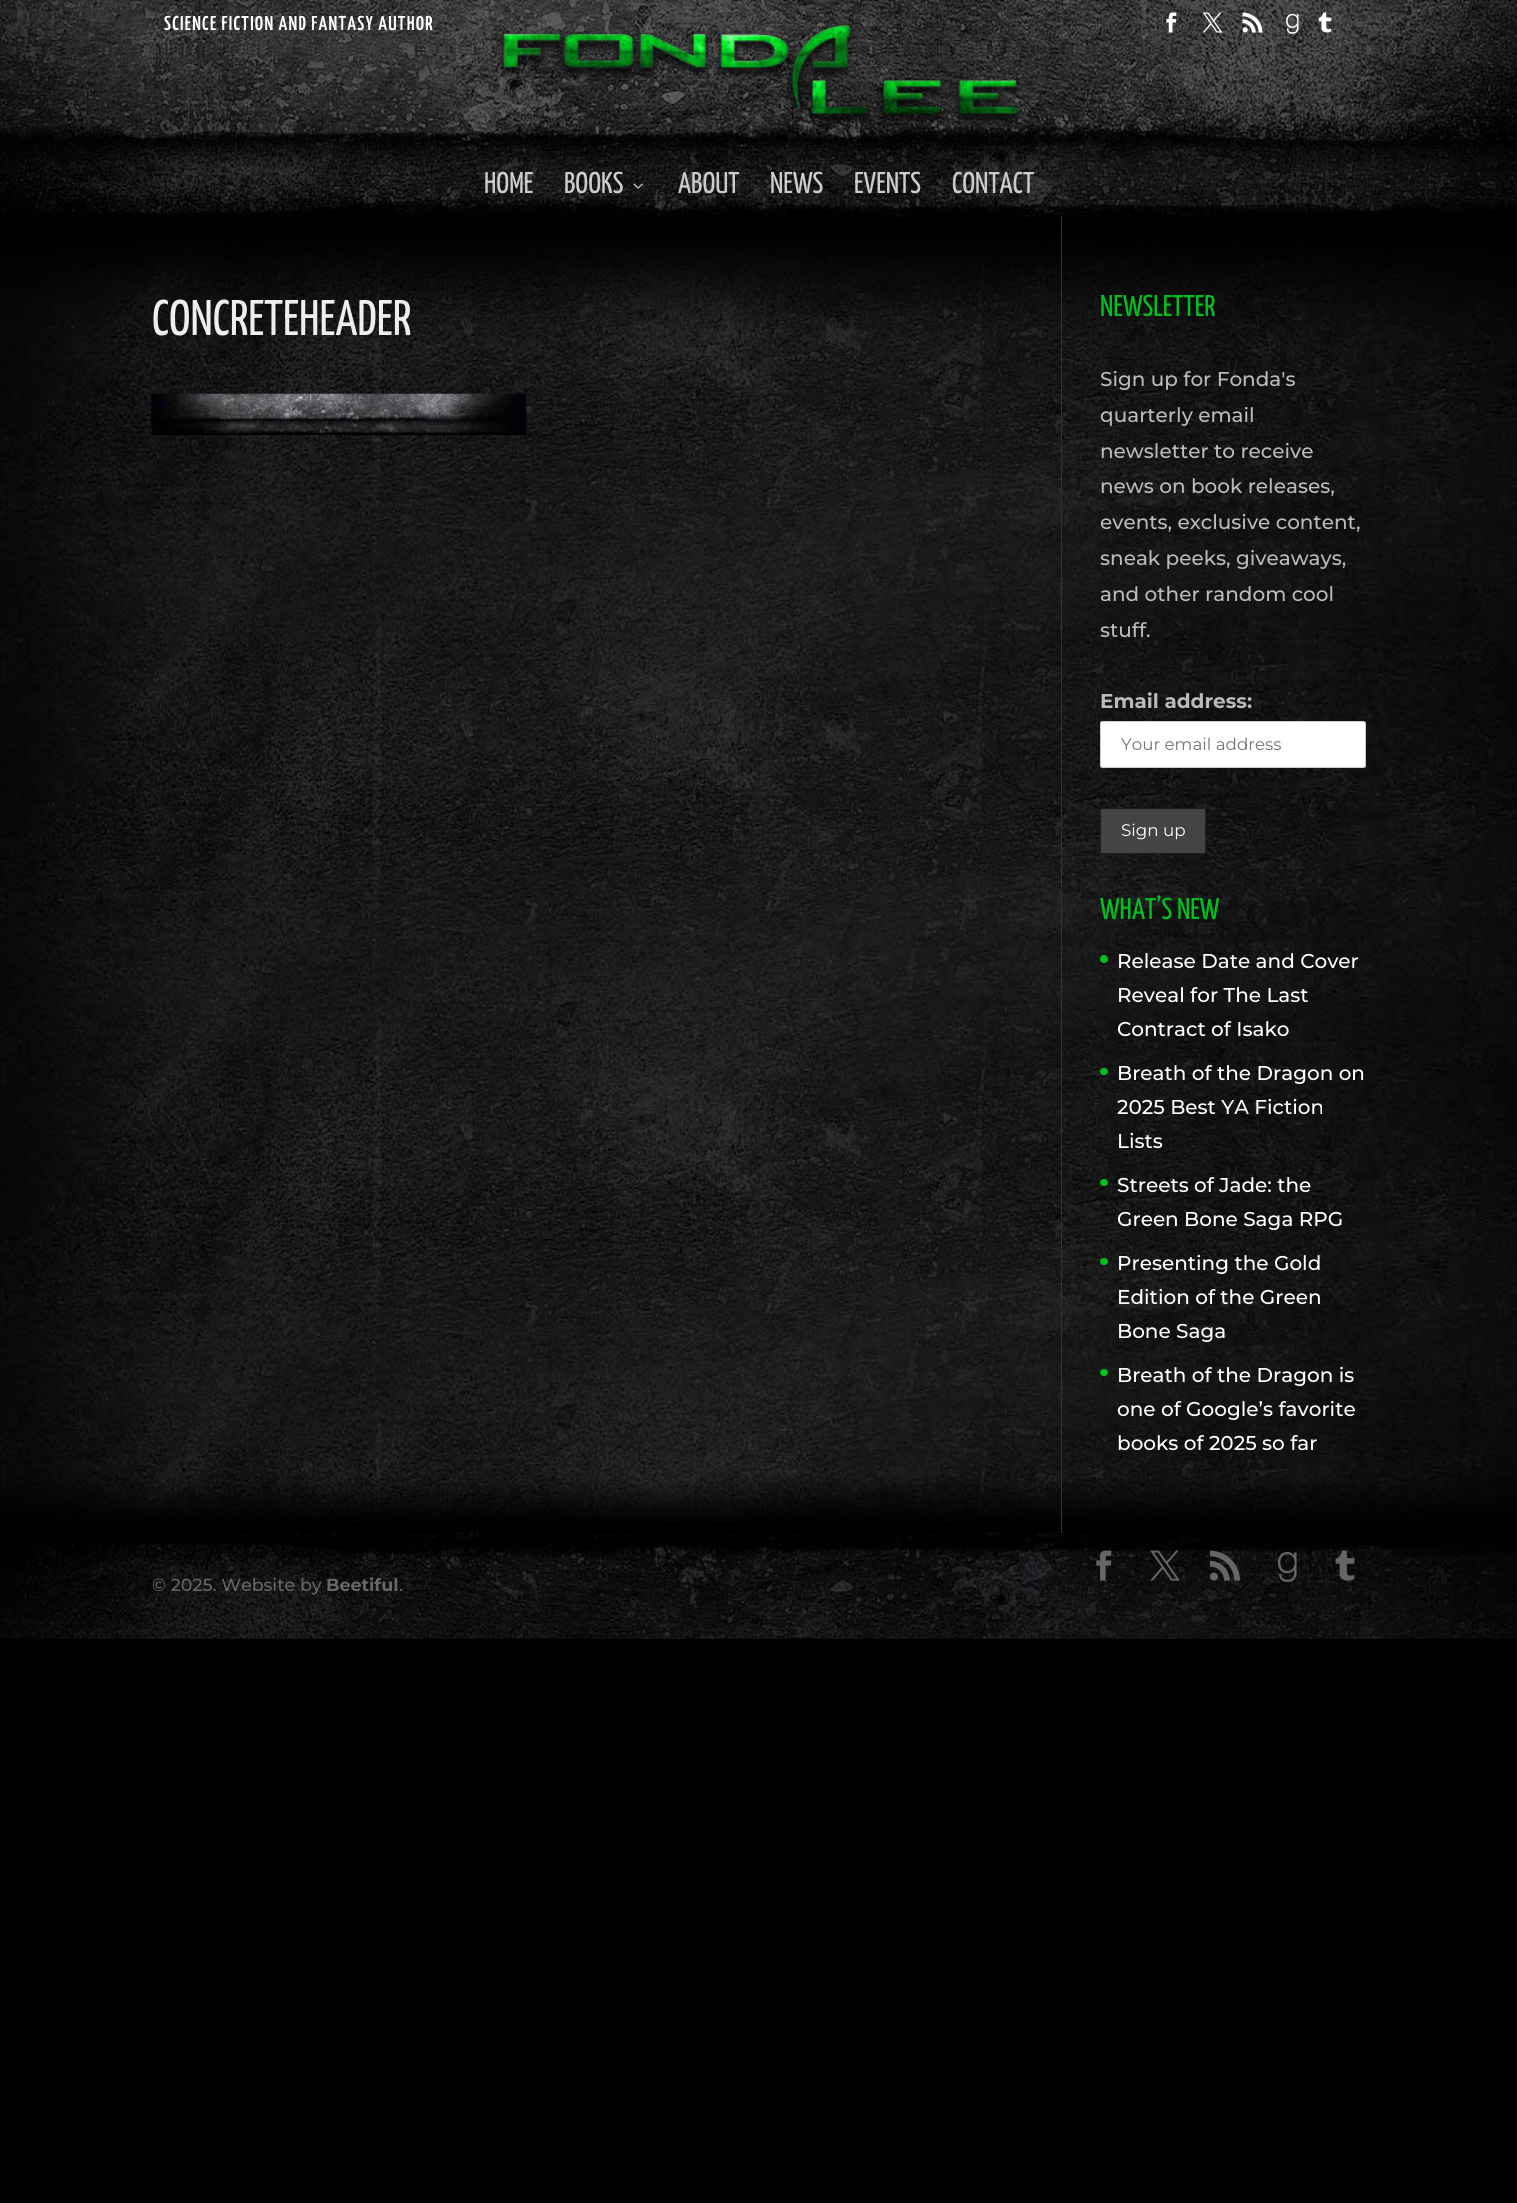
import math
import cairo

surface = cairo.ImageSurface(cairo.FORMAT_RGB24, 1517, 2203)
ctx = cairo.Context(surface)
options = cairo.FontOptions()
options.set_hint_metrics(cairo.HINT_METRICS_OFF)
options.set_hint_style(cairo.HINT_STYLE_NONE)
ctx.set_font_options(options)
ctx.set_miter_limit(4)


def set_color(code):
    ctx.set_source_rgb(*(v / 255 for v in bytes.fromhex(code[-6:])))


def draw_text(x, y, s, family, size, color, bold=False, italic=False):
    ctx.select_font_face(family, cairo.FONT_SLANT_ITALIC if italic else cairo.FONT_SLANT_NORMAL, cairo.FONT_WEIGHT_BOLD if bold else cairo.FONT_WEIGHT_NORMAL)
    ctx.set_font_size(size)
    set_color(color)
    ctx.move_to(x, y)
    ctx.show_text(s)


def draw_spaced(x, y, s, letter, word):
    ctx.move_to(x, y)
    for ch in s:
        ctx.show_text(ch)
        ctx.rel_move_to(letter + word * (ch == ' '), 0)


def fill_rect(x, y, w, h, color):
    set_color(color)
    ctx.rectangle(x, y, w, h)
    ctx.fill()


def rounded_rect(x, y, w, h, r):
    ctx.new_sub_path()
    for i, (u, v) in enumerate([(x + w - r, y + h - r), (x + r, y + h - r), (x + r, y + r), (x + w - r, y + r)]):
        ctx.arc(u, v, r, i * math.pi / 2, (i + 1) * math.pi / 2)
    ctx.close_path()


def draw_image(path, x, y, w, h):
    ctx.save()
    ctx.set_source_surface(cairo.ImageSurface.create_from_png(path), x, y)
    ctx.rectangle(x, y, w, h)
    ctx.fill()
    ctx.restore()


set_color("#000000")
ctx.paint()
draw_image("assets/img1.png", 0, 0, 1517, 50)
ctx.select_font_face("Yanone Kaffeesatz SemiBold")
ctx.set_font_size(20)
set_color("#ffffff")
draw_spaced(164, 30, "SCIENCE FICTION AND FANTASY AUTHOR", 1.25, 0)
draw_image("assets/img2.png", 1166, 12, 11, 21)
draw_image("assets/img3.png", 1202, 12, 21, 21)
draw_image("assets/img4.png", 1242, 12, 21, 21)
draw_image("assets/img5.png", 1286, 13, 13, 21)
draw_image("assets/img6.png", 1318, 12, 14, 21)
draw_image("assets/img10.png", 0, 216, 1517, 1317)
draw_image("assets/img12.png", 0, 1532, 1517, 107)
fill_rect(1061, 216, 1, 1317, "#333333")
ctx.set_source_rgba(0, 0, 0, 0.1)
ctx.new_path()
ctx.move_to(0, 216)
ctx.line_to(0, 218)
ctx.line_to(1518, 218)
ctx.line_to(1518, 51)
ctx.line_to(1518, 216)
ctx.close_path()
ctx.fill()
draw_image("assets/img7.png", 0, 50, 1517, 167)
draw_image("assets/img8.png", 497, 24, 525, 102)
draw_text(484, 193, "HOME", "Yanone Kaffeesatz", 30, "#cccccc")
draw_text(564, 193, "BOOKS", "Yanone Kaffeesatz", 30, "#cccccc")
draw_image("assets/img9.png", 633, 183, 10, 6)
draw_text(678, 193, "ABOUT", "Yanone Kaffeesatz", 30, "#cccccc")
draw_text(770, 193, "NEWS", "Yanone Kaffeesatz", 30, "#cccccc")
draw_text(854, 193, "EVENTS", "Yanone Kaffeesatz", 30, "#cccccc")
draw_text(952, 193, "CONTACT", "Yanone Kaffeesatz", 30, "#cccccc")
draw_text(152, 335, "CONCRETEHEADER", "Yanone Kaffeesatz", 50, "#eeeeee")
draw_image("assets/img11.png", 151, 393, 376, 42)
draw_text(1100, 316, "NEWSLETTER", "Yanone Kaffeesatz", 30, "#01bf20")
draw_text(1100, 386, "Sign up for Fonda's", "Montserrat Medium", 20, "#bbbbbb")
draw_text(1100, 422, "quarterly email", "Montserrat Medium", 20, "#bbbbbb")
draw_text(1100, 458, "newsletter to receive", "Montserrat Medium", 20, "#bbbbbb")
draw_text(1100, 493, "news on book releases,", "Montserrat Medium", 20, "#bbbbbb")
draw_text(1100, 529, "events, exclusive content,", "Montserrat Medium", 20, "#bbbbbb")
draw_text(1100, 565, "sneak peeks, giveaways,", "Montserrat Medium", 20, "#bbbbbb")
draw_text(1100, 601, "and other random cool", "Montserrat Medium", 20, "#bbbbbb")
draw_text(1100, 637, "stuff.", "Montserrat Medium", 20, "#bbbbbb")
draw_text(1100, 708, "Email address:", "Montserrat", 20, "#bbbbbb", bold=True)
set_color("#ffffff")
rounded_rect(1100.5, 721.5, 265, 46, 2)
ctx.fill_preserve()
set_color("#cccccc")
ctx.set_line_width(1)
ctx.stroke()
draw_text(1121, 750, "Your email address", "Montserrat", 16.75, "#757575")
set_color("#444444")
rounded_rect(1100.5, 808.5, 105, 45, 2)
ctx.fill_preserve()
set_color("#1e1e1e")
ctx.stroke()
draw_text(1121, 836, "Sign up", "Montserrat", 16.75, "#ffffff")
draw_text(1100, 919, "WHAT’S NEW", "Yanone Kaffeesatz", 30, "#01bf20")
ctx.new_path()
ctx.arc(1104, 959, 4, 0, 2 * math.pi)
ctx.fill()
draw_text(1117, 968, "Release Date and Cover", "Montserrat Medium", 20, "#ffffff")
draw_text(1117, 1002, "Reveal for The Last", "Montserrat Medium", 20, "#ffffff")
draw_text(1117, 1036, "Contract of Isako", "Montserrat Medium", 20, "#ffffff")
set_color("#01bf20")
rounded_rect(1100, 1068, 8, 7, 3.5)
ctx.fill()
draw_text(1117, 1080, "Breath of the Dragon on", "Montserrat Medium", 20, "#ffffff")
draw_text(1117, 1114, "2025 Best YA Fiction", "Montserrat Medium", 20, "#ffffff")
draw_text(1117, 1148, "Lists", "Montserrat Medium", 20, "#ffffff")
set_color("#01bf20")
rounded_rect(1100, 1179, 8, 7, 3.5)
ctx.fill()
draw_text(1117, 1192, "Streets of Jade: the", "Montserrat Medium", 20, "#ffffff")
draw_text(1117, 1226, "Green Bone Saga RPG", "Montserrat Medium", 20, "#ffffff")
set_color("#01bf20")
rounded_rect(1100, 1258, 8, 7, 3.5)
ctx.fill()
draw_text(1117, 1270, "Presenting the Gold", "Montserrat Medium", 20, "#ffffff")
draw_text(1117, 1304, "Edition of the Green", "Montserrat Medium", 20, "#ffffff")
draw_text(1117, 1338, "Bone Saga", "Montserrat Medium", 20, "#ffffff")
set_color("#01bf20")
rounded_rect(1100, 1369, 8, 7, 3.5)
ctx.fill()
draw_text(1117, 1382, "Breath of the Dragon is", "Montserrat Medium", 20, "#ffffff")
draw_text(1117, 1416, "one of Google’s favorite", "Montserrat Medium", 20, "#ffffff")
draw_text(1117, 1450, "books of 2025 so far", "Montserrat Medium", 20, "#ffffff")
draw_image("assets/img13.png", 1096, 1550, 16, 31)
draw_image("assets/img14.png", 1150, 1550, 30, 31)
draw_image("assets/img15.png", 1210, 1550, 30, 31)
draw_image("assets/img16.png", 1277, 1552, 20, 30)
draw_image("assets/img17.png", 1335, 1550, 20, 31)
draw_text(152, 1591, "© 2025. Website by", "Montserrat Medium", 17.5, "#666666")
draw_text(326, 1591, "Beetiful", "Montserrat", 17.5, "#666666", bold=True)
draw_text(399, 1591, ".", "Montserrat Medium", 17.5, "#666666")
surface.write_to_png("output.png")
